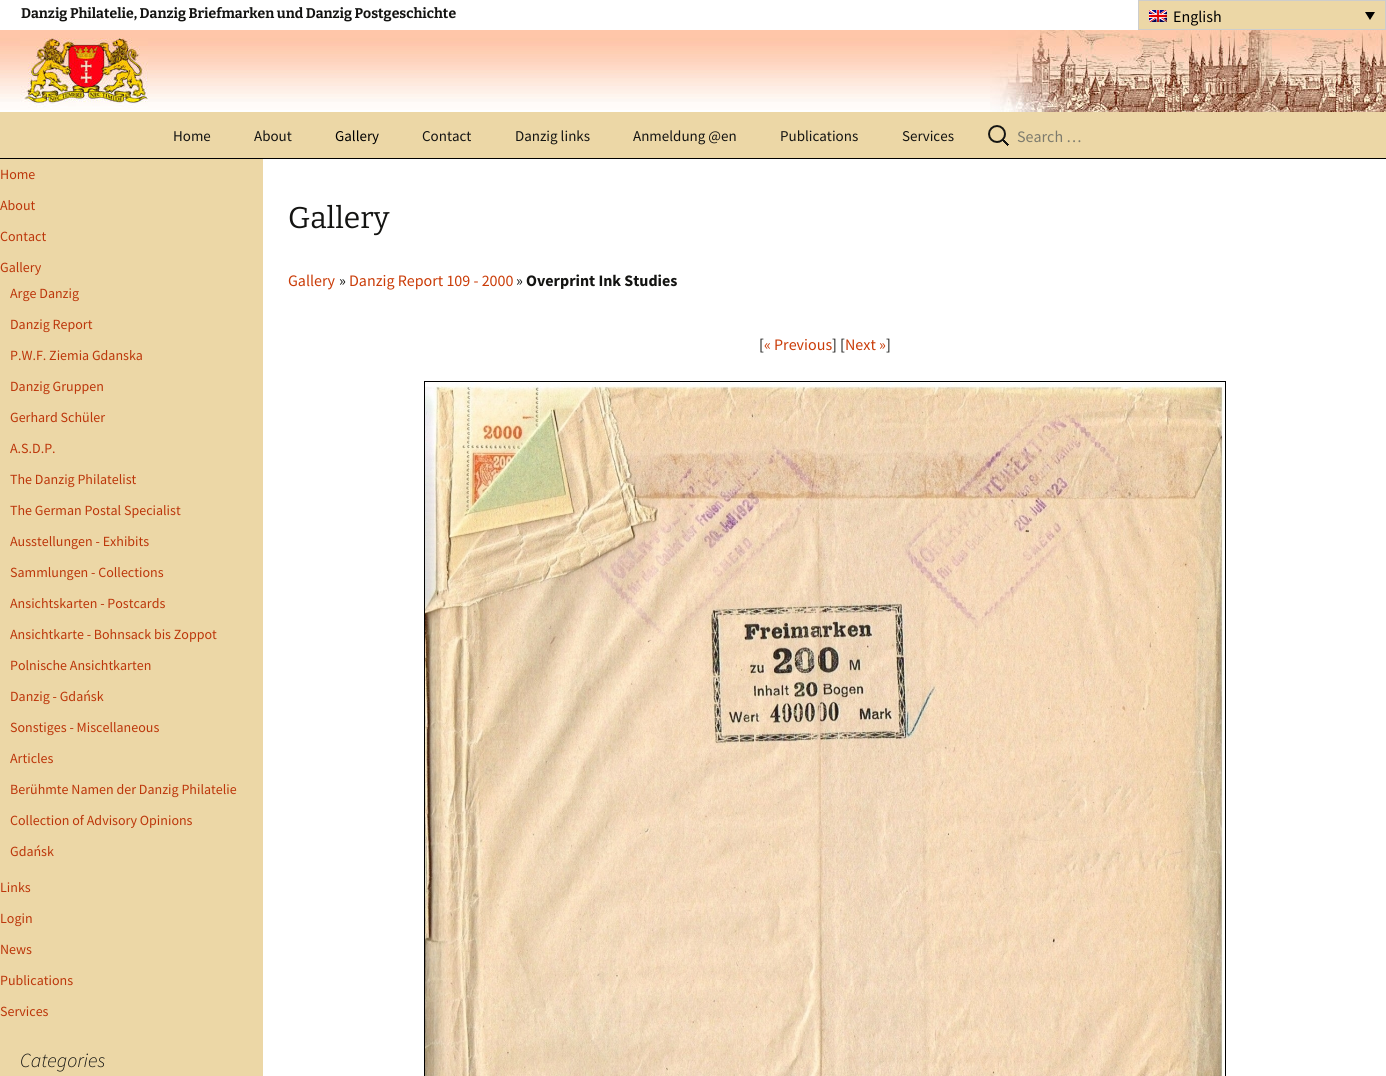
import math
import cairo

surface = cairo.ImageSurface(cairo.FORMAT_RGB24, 1386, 1076)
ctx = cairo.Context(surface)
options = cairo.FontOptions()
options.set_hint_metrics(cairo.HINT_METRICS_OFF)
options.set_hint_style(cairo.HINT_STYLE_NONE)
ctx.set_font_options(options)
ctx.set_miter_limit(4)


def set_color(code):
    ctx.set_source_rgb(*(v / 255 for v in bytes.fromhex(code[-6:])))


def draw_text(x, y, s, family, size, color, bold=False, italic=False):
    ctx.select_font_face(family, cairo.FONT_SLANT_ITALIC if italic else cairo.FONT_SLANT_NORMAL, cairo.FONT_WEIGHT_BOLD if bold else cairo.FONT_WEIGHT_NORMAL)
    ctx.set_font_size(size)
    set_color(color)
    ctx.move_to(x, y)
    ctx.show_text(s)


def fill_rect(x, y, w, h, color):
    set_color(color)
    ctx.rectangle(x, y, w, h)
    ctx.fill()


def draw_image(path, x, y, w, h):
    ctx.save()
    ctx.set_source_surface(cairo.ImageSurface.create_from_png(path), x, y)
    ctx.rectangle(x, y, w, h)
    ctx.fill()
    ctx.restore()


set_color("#ffffff")
ctx.paint()
fill_rect(0, 112, 1386, 46, "#ecd7a6")
fill_rect(0, 158, 1386, 1, "#000000")
draw_text(21, 18, "Danzig Philatelie, Danzig Briefmarken und Danzig Postgeschichte", "Bitter", 14, "#141412", bold=True)
set_color("#ecd7a6")
ctx.rectangle(1138.5, 0.5, 247, 29)
ctx.fill_preserve()
set_color("#cdcdcd")
ctx.set_line_width(1)
ctx.stroke()
draw_image("assets/img1.png", 1149, 10, 18, 12)
draw_text(1173, 22, "English", "Source Sans Pro", 16, "#000000")
ctx.new_path()
ctx.move_to(1365, 12)
ctx.line_to(1375, 12)
ctx.line_to(1370, 20)
ctx.close_path()
ctx.fill()
draw_image("assets/img2.png", 0, 30, 990, 82)
draw_image("assets/img3.png", 20, 38, 128, 70)
draw_image("assets/img4.png", 990, 30, 396, 82)
draw_text(173, 141, "Home", "Source Sans Pro", 15, "#141412")
draw_text(254, 141, "About", "Source Sans Pro", 15, "#141412")
draw_text(335, 141, "Gallery", "Source Sans Pro", 15, "#000000")
draw_text(422, 141, "Contact", "Source Sans Pro", 15, "#141412")
draw_text(515, 141, "Danzig links", "Source Sans Pro", 15, "#141412")
draw_text(633, 141, "Anmeldung @en", "Source Sans Pro", 15, "#141412")
draw_text(780, 141, "Publications", "Source Sans Pro", 15, "#141412")
draw_text(902, 141, "Services", "Source Sans Pro", 15, "#141412")
draw_image("assets/img5.png", 988, 125, 21, 21)
draw_text(1017, 142, "Search …", "Source Sans Pro", 16, "#7d7b6d")
fill_rect(0, 159, 263, 917, "#ecd7a6")
draw_text(0, 179, "Home", "Source Sans Pro", 14, "#bc360a")
draw_text(0, 210, "About", "Source Sans Pro", 14, "#bc360a")
draw_text(0, 241, "Contact", "Source Sans Pro", 14, "#bc360a")
draw_text(0, 272, "Gallery", "Source Sans Pro", 14, "#bc360a")
draw_text(10, 298, "Arge Danzig", "Source Sans Pro", 14, "#bc360a")
draw_text(10, 329, "Danzig Report", "Source Sans Pro", 14, "#bc360a")
draw_text(10, 360, "P.W.F. Ziemia Gdanska", "Source Sans Pro", 14, "#bc360a")
draw_text(10, 391, "Danzig Gruppen", "Source Sans Pro", 14, "#bc360a")
draw_text(10, 422, "Gerhard Schüler", "Source Sans Pro", 14, "#bc360a")
draw_text(10, 453, "A.S.D.P.", "Source Sans Pro", 14, "#bc360a")
draw_text(10, 484, "The Danzig Philatelist", "Source Sans Pro", 14, "#bc360a")
draw_text(10, 515, "The German Postal Specialist", "Source Sans Pro", 14, "#bc360a")
draw_text(10, 546, "Ausstellungen - Exhibits", "Source Sans Pro", 14, "#bc360a")
draw_text(10, 577, "Sammlungen - Collections", "Source Sans Pro", 14, "#bc360a")
draw_text(10, 608, "Ansichtskarten - Postcards", "Source Sans Pro", 14, "#bc360a")
draw_text(10, 639, "Ansichtkarte - Bohnsack bis Zoppot", "Source Sans Pro", 14, "#bc360a")
draw_text(10, 670, "Polnische Ansichtkarten", "Source Sans Pro", 14, "#bc360a")
draw_text(10, 701, "Danzig - Gdańsk", "Source Sans Pro", 14, "#bc360a")
draw_text(10, 732, "Sonstiges - Miscellaneous", "Source Sans Pro", 14, "#bc360a")
draw_text(10, 763, "Articles", "Source Sans Pro", 14, "#bc360a")
draw_text(10, 794, "Berühmte Namen der Danzig Philatelie", "Source Sans Pro", 14, "#bc360a")
draw_text(10, 825, "Collection of Advisory Opinions", "Source Sans Pro", 14, "#bc360a")
draw_text(10, 856, "Gdańsk", "Source Sans Pro", 14, "#bc360a")
draw_text(0, 892, "Links", "Source Sans Pro", 14, "#bc360a")
draw_text(0, 923, "Login", "Source Sans Pro", 14, "#bc360a")
draw_text(0, 954, "News", "Source Sans Pro", 14, "#bc360a")
draw_text(0, 985, "Publications", "Source Sans Pro", 14, "#bc360a")
draw_text(0, 1016, "Services", "Source Sans Pro", 14, "#bc360a")
draw_text(20, 1067, "Categories", "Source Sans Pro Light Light", 20, "#141412", italic=True)
draw_text(288, 228, "Gallery", "Bitter", 30, "#141412")
draw_text(288, 286, "Gallery", "Source Sans Pro", 16, "#ca3c08")
draw_text(339, 286, "»", "Source Sans Pro", 16, "#141412")
draw_text(349, 286, "Danzig Report 109 - 2000", "Source Sans Pro", 16, "#ca3c08")
draw_text(516, 286, "»", "Source Sans Pro", 16, "#141412")
draw_text(526, 286, "Overprint Ink Studies", "Source Sans Pro", 16, "#141412", bold=True)
draw_text(759, 350, "[", "Source Sans Pro", 16, "#141412")
draw_text(764, 350, "« Previous", "Source Sans Pro", 16, "#ca3c08")
draw_text(832, 350, "] [", "Source Sans Pro", 16, "#141412")
draw_text(845, 350, "Next »", "Source Sans Pro", 16, "#ca3c08")
draw_text(886, 350, "]", "Source Sans Pro", 16, "#141412")
ctx.rectangle(424.5, 381.5, 801, 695)
set_color("#000000")
ctx.stroke()
draw_image("assets/img6.png", 425, 382, 800, 694)
surface.write_to_png("output.png")
